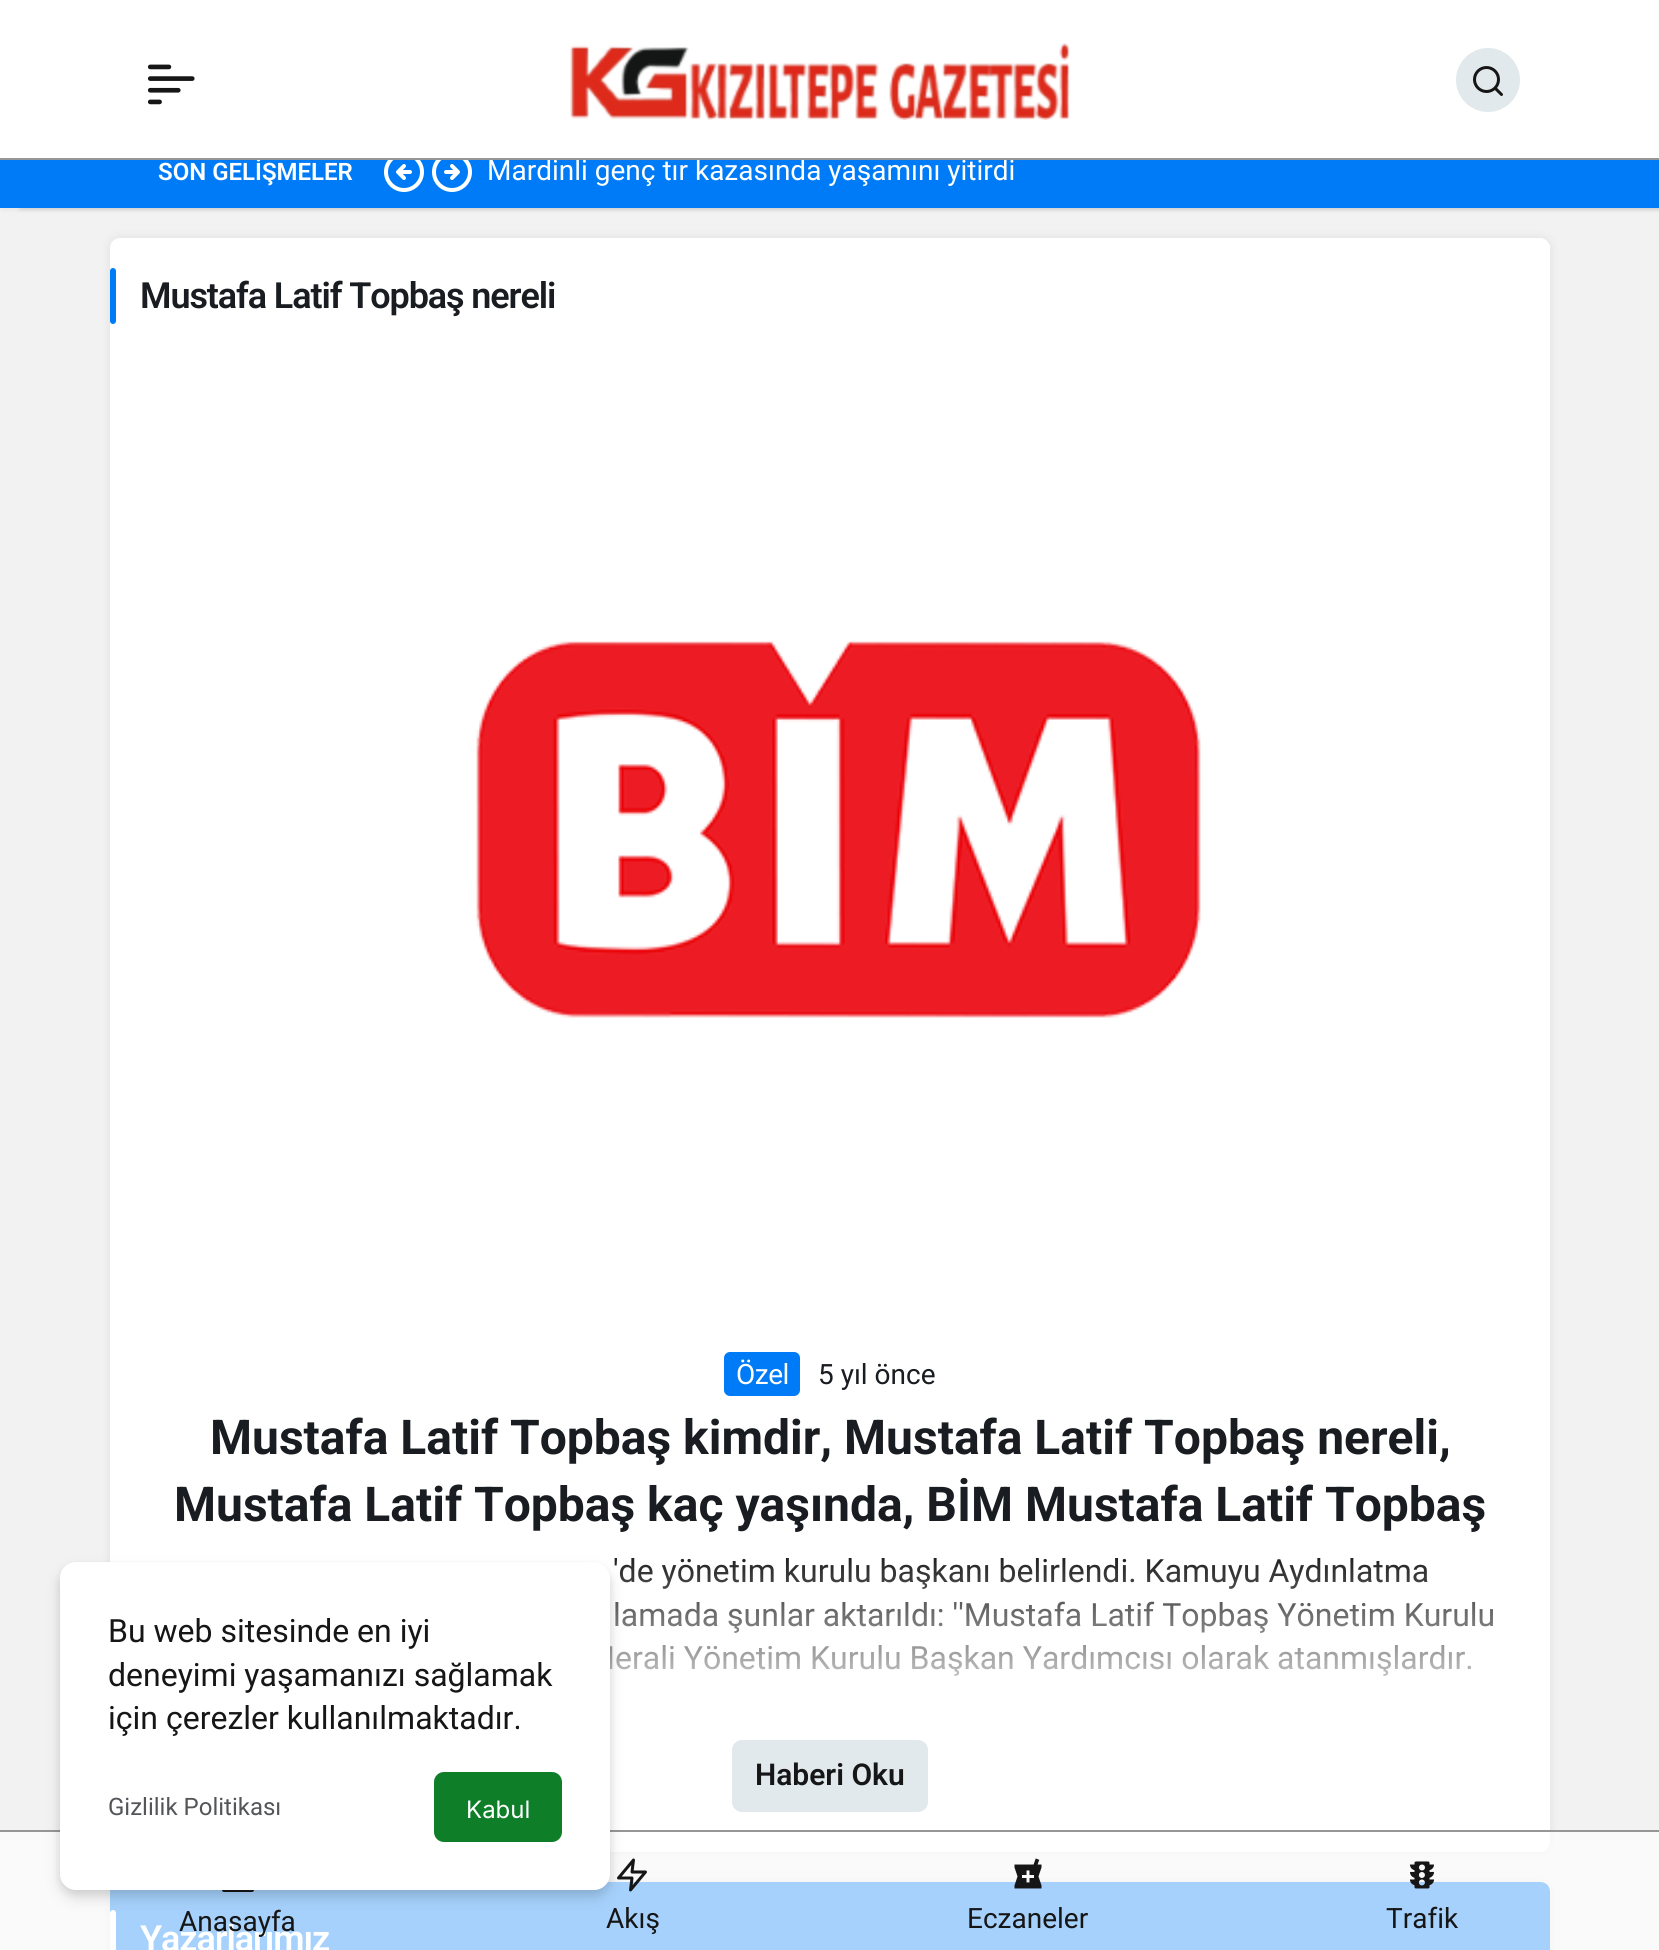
import math
import cairo

surface = cairo.ImageSurface(cairo.FORMAT_RGB24, 1659, 1950)
ctx = cairo.Context(surface)
options = cairo.FontOptions()
options.set_hint_metrics(cairo.HINT_METRICS_OFF)
options.set_hint_style(cairo.HINT_STYLE_NONE)
ctx.set_font_options(options)
ctx.set_miter_limit(4)


def set_color(code):
    ctx.set_source_rgb(*(v / 255 for v in bytes.fromhex(code[-6:])))


def draw_text(x, y, s, family, size, color, bold=False, italic=False):
    ctx.select_font_face(family, cairo.FONT_SLANT_ITALIC if italic else cairo.FONT_SLANT_NORMAL, cairo.FONT_WEIGHT_BOLD if bold else cairo.FONT_WEIGHT_NORMAL)
    ctx.set_font_size(size)
    set_color(color)
    ctx.move_to(x, y)
    ctx.show_text(s)


def draw_spaced(x, y, s, letter, word):
    ctx.move_to(x, y)
    for ch in s:
        ctx.show_text(ch)
        ctx.rel_move_to(letter + word * (ch == ' '), 0)


def fill_rect(x, y, w, h, color):
    set_color(color)
    ctx.rectangle(x, y, w, h)
    ctx.fill()


def rounded_rect(x, y, w, h, r):
    ctx.new_sub_path()
    for i, (u, v) in enumerate([(x + w - r, y + h - r), (x + r, y + h - r), (x + r, y + r), (x + w - r, y + r)]):
        ctx.arc(u, v, r, i * math.pi / 2, (i + 1) * math.pi / 2)
    ctx.close_path()


def draw_shadow(x, y, w, h, r, blur, alpha):
    ctx.push_group_with_content(cairo.CONTENT_ALPHA)
    ctx.set_operator(cairo.OPERATOR_SOURCE)
    for i in range(15, -16, -2):
        e = blur * i / 6
        if min(w, h) + 2 * e > 0:
            ctx.set_source_rgba(0, 0, 0, alpha * math.erfc((i - 1) / 8.5) / 2)
            rounded_rect(x - e, y - e, w + 2 * e, h + 2 * e, max(0, min(r + e + blur * .6, min(w, h) / 2 + e)))
            ctx.fill()
    ctx.mask(ctx.pop_group())


def draw_image(path, x, y, w, h):
    ctx.save()
    ctx.set_source_surface(cairo.ImageSurface.create_from_png(path), x, y)
    ctx.rectangle(x, y, w, h)
    ctx.fill()
    ctx.restore()


set_color("#f2f2f3")
ctx.paint()
set_color("#000000")
draw_shadow(2, 0, 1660, 208, 0, 3, 0.1)
draw_shadow(20, 130, 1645, 80, 0, 2, 0.1)
fill_rect(0, 0, 1659, 158, "#ffffff")
fill_rect(0, 160, 1659, 48, "#007bf7")
draw_text(158, 180, "SON GELİŞMELER", "Roboto SemiBold", 24, "#ffffff")
draw_text(487, 180, "Mardinli genç tır kazasında yaşamını yitirdi", "Roboto", 28, "#ffffff")
fill_rect(0, 158, 1659, 2, "#969696")
draw_image("assets/img1.png", 147, 64, 48, 41)
draw_image("assets/img2.png", 570, 43, 500, 77)
set_color("#e1e9ed")
ctx.arc(1488, 80, 32, 0, 2 * math.pi)
ctx.fill()
draw_image("assets/img3.png", 1473, 66, 30, 30)
draw_image("assets/img4.png", 384, 160, 40, 32)
draw_image("assets/img5.png", 432, 160, 40, 32)
set_color("#32353d")
draw_shadow(110, 238, 1440, 1614, 10, 5, 0.1)
set_color("#ffffff")
rounded_rect(110, 238, 1440, 1614, 10)
ctx.fill()
set_color("#007bf7")
rounded_rect(110, 268, 6, 56, 3)
ctx.fill()
ctx.select_font_face("Roboto SemiBold")
ctx.set_font_size(36)
set_color("#191c20")
draw_spaced(140, 308, "Mustafa Latif Topbaş nereli", -1.1, 0)
draw_image("assets/img6.png", 476, 352, 1074, 960)
set_color("#007bf7")
rounded_rect(724, 1352, 76, 44, 6)
ctx.fill()
ctx.select_font_face("Roboto")
ctx.set_font_size(28)
set_color("#ffffff")
draw_spaced(736, 1384, "Özel", -0.5, 0)
draw_text(818, 1384, "5 yıl önce", "Roboto", 28, "#191c20")
draw_text(210, 1454, "Mustafa Latif Topbaş kimdir, Mustafa Latif Topbaş nereli,", "Roboto", 48, "#191c20", bold=True)
draw_text(174, 1521, "Mustafa Latif Topbaş kaç yaşında, BİM Mustafa Latif Topbaş", "Roboto", 48, "#191c20", bold=True)
draw_text(613, 1582, "'de yönetim kurulu başkanı belirlendi. Kamuyu Aydınlatma", "Roboto", 32, "#161616")
draw_text(613, 1626, "lamada şunlar aktarıldı: ''Mustafa Latif Topbaş Yönetim Kurulu", "Roboto", 32, "#161616")
draw_text(587, 1669, "Merali Yönetim Kurulu Başkan Yardımcısı olarak atanmışlardır.", "Roboto", 32, "#161616")
gradient = cairo.LinearGradient(830, 1550, 830, 1724)
gradient.add_color_stop_rgba(0, 1, 1, 1, 0)
gradient.add_color_stop_rgba(1, 1, 1, 1, 1)
ctx.set_source(gradient)
ctx.rectangle(589, 1558, 905, 118)
ctx.fill()
set_color("#e1e9ed")
rounded_rect(732, 1740, 196, 72, 10)
ctx.fill()
draw_text(755, 1785, "Haberi Oku", "Roboto SemiBold", 30, "#161616")
set_color("#32353d")
draw_shadow(110, 1882, 1440, 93, 10, 5, 0.1)
set_color("#007bf7")
ctx.new_path()
ctx.move_to(120, 1882)
ctx.curve_to(114, 1882, 110, 1886, 110, 1892)
ctx.line_to(110, 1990)
ctx.curve_to(110, 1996, 114, 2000, 120, 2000)
ctx.line_to(1540, 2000)
ctx.curve_to(1546, 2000, 1550, 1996, 1550, 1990)
ctx.line_to(1550, 1892)
ctx.curve_to(1550, 1886, 1546, 1882, 1540, 1882)
ctx.close_path()
ctx.fill()
set_color("#ffffff")
rounded_rect(110, 1910, 6, 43, 3)
ctx.fill()
ctx.set_font_size(36)
draw_spaced(140, 1951, "Yazarlarımız", -1.1, 0)
ctx.set_source_rgba(1, 1, 1, 0.65)
ctx.rectangle(0, 1832, 1659, 118)
ctx.fill()
fill_rect(0, 1830, 1659, 2, "#969696")
draw_image("assets/img7.png", 222, 1890, 32, 2)
draw_image("assets/img8.png", 617, 1858, 30, 34)
set_color("#000000")
draw_shadow(60, 1566, 550, 328, 16, 4, 0.08)
draw_shadow(60, 1570, 550, 328, 16, 8, 0.12)
set_color("#ffffff")
rounded_rect(60, 1562, 550, 328, 16)
ctx.fill()
draw_text(108, 1642, "Bu web sitesinde en iyi", "Roboto", 32, "#161616")
draw_text(108, 1686, "deneyimi yaşamanızı sağlamak", "Roboto", 32, "#161616")
draw_text(108, 1729, "için çerezler kullanılmaktadır.", "Roboto", 32, "#161616")
draw_text(108, 1815, "Gizlilik Politikası", "Roboto", 24, "#535558")
set_color("#0f7e29")
rounded_rect(434, 1772, 128, 70, 10)
ctx.fill()
draw_text(466, 1818, "Kabul", "Inter", 24, "#ffffff")
draw_text(179, 1931, "Anasayfa", "Roboto", 28, "#161616")
draw_text(606, 1928, "Akış", "Roboto", 28, "#161616")
draw_image("assets/img9.png", 1014, 1858, 28, 31)
draw_text(967, 1928, "Eczaneler", "Roboto", 28, "#161616")
draw_image("assets/img10.png", 1410, 1861, 24, 28)
draw_text(1386, 1928, "Trafik", "Roboto", 28, "#161616")
surface.write_to_png("output.png")
